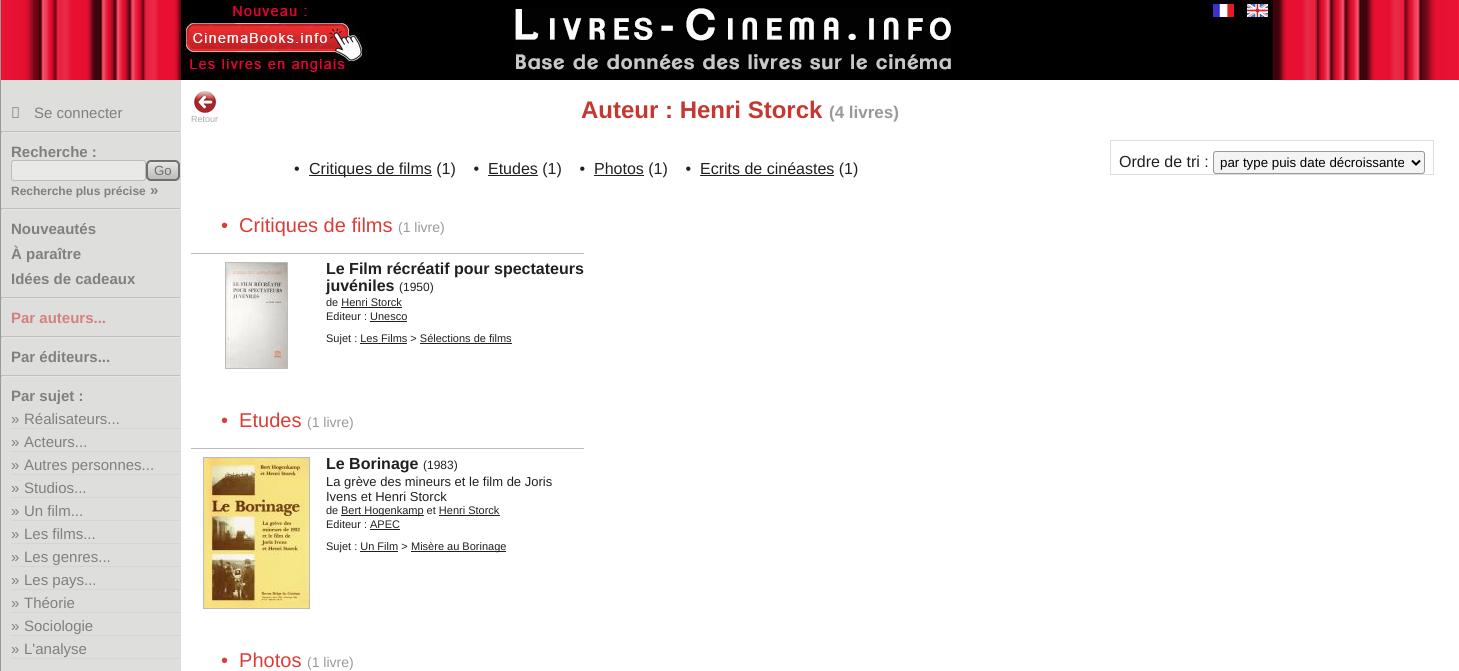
import math
import cairo

surface = cairo.ImageSurface(cairo.FORMAT_RGB24, 1459, 671)
ctx = cairo.Context(surface)
options = cairo.FontOptions()
options.set_hint_metrics(cairo.HINT_METRICS_OFF)
options.set_hint_style(cairo.HINT_STYLE_NONE)
ctx.set_font_options(options)
ctx.set_miter_limit(4)


def set_color(code):
    ctx.set_source_rgb(*(v / 255 for v in bytes.fromhex(code[-6:])))


def draw_text(x, y, s, family, size, color, bold=False, italic=False):
    ctx.select_font_face(family, cairo.FONT_SLANT_ITALIC if italic else cairo.FONT_SLANT_NORMAL, cairo.FONT_WEIGHT_BOLD if bold else cairo.FONT_WEIGHT_NORMAL)
    ctx.set_font_size(size)
    set_color(color)
    ctx.move_to(x, y)
    ctx.show_text(s)


def fill_rect(x, y, w, h, color):
    set_color(color)
    ctx.rectangle(x, y, w, h)
    ctx.fill()


def rounded_rect(x, y, w, h, r):
    ctx.new_sub_path()
    for i, (u, v) in enumerate([(x + w - r, y + h - r), (x + r, y + h - r), (x + r, y + r), (x + w - r, y + r)]):
        ctx.arc(u, v, r, i * math.pi / 2, (i + 1) * math.pi / 2)
    ctx.close_path()


def draw_image(path, x, y, w, h):
    ctx.save()
    ctx.set_source_surface(cairo.ImageSurface.create_from_png(path), x, y)
    ctx.rectangle(x, y, w, h)
    ctx.fill()
    ctx.restore()


set_color("#ffffff")
ctx.paint()
fill_rect(365, 0, 907, 80, "#000000")
draw_image("assets/img1.png", 1272, 0, 187, 80)
draw_image("assets/img2.png", 1, 0, 180, 80)
draw_image("assets/img3.png", 515, 8, 436, 62)
draw_image("assets/img4.png", 181, 0, 184, 80)
draw_image("assets/img5.png", 1213, 4, 21, 13)
draw_image("assets/img6.png", 1247, 4, 21, 13)
fill_rect(0, 0, 1, 671, "#999999")
fill_rect(1, 80, 180, 591, "#dededc")
draw_image("assets/img7.png", 12, 107, 7, 11)
draw_text(34, 118, "Se connecter", "Liberation Sans", 15, "#80807f")
fill_rect(1, 131, 180, 1, "#bfbfbe")
fill_rect(180, 131, 1, 2, "#e6e6e5")
fill_rect(1, 132, 180, 1, "#e6e6e5")
fill_rect(1, 131, 1, 2, "#bfbfbe")
draw_text(11, 157, "Recherche :", "Liberation Sans", 15, "#80807f", bold=True)
set_color("#e9e9e8")
rounded_rect(11.5, 160.5, 134, 20, 2.5)
ctx.fill_preserve()
set_color("#bcbcbb")
ctx.set_line_width(1)
ctx.stroke()
ctx.save()
rounded_rect(146, 160, 34, 21, 5)
ctx.clip()
gradient = cairo.LinearGradient(163, 162, 163, 179)
gradient.add_color_stop_rgba(0, 0.902, 0.902, 0.898, 1)
gradient.add_color_stop_rgba(1, 0.737, 0.737, 0.733, 1)
ctx.set_source(gradient)
ctx.rectangle(146, 162, 34, 17)
ctx.fill()
ctx.restore()
rounded_rect(147, 161, 32, 19, 4)
set_color("#6f6f6e")
ctx.set_line_width(2)
ctx.stroke()
draw_text(154, 175, "Go", "Liberation Sans", 13.3, "#6f6f6e")
draw_text(11, 195, "Recherche plus précise", "Liberation Sans", 12, "#80807f", bold=True)
draw_text(150, 195, "»", "Liberation Sans", 15, "#80807f", bold=True)
fill_rect(1, 208, 180, 1, "#bfbfbe")
fill_rect(180, 208, 1, 2, "#e6e6e5")
fill_rect(1, 209, 180, 1, "#e6e6e5")
fill_rect(1, 208, 1, 2, "#bfbfbe")
draw_text(11, 234, "Nouveautés", "Liberation Sans", 15, "#80807f", bold=True)
draw_text(11, 259, "À paraître", "Liberation Sans", 15, "#80807f", bold=True)
draw_text(11, 284, "Idées de cadeaux", "Liberation Sans", 15, "#80807f", bold=True)
fill_rect(1, 297, 180, 1, "#bfbfbe")
fill_rect(180, 297, 1, 2, "#e6e6e5")
fill_rect(1, 298, 180, 1, "#e6e6e5")
fill_rect(1, 297, 1, 2, "#bfbfbe")
draw_text(11, 323, "Par auteurs...", "Liberation Sans", 15, "#d5807f", bold=True)
fill_rect(1, 336, 180, 1, "#bfbfbe")
fill_rect(180, 336, 1, 2, "#e6e6e5")
fill_rect(1, 337, 180, 1, "#e6e6e5")
fill_rect(1, 336, 1, 2, "#bfbfbe")
draw_text(11, 362, "Par éditeurs...", "Liberation Sans", 15, "#80807f", bold=True)
fill_rect(1, 375, 180, 1, "#bfbfbe")
fill_rect(180, 375, 1, 2, "#e6e6e5")
fill_rect(1, 376, 180, 1, "#e6e6e5")
fill_rect(1, 375, 1, 2, "#bfbfbe")
draw_text(11, 401, "Par sujet :", "Liberation Sans", 15, "#80807f", bold=True)
fill_rect(11, 428, 170, 1, "#d5d5d4")
draw_text(11, 424, "»", "Liberation Sans", 15, "#80807f")
draw_text(24, 424, "Réalisateurs...", "Liberation Sans", 15, "#80807f")
fill_rect(11, 451, 170, 1, "#d5d5d4")
draw_text(11, 447, "»", "Liberation Sans", 15, "#80807f")
draw_text(24, 447, "Acteurs...", "Liberation Sans", 15, "#80807f")
fill_rect(11, 474, 170, 1, "#d5d5d4")
draw_text(11, 470, "»", "Liberation Sans", 15, "#80807f")
draw_text(24, 470, "Autres personnes...", "Liberation Sans", 15, "#80807f")
fill_rect(11, 497, 170, 1, "#d5d5d4")
draw_text(11, 493, "»", "Liberation Sans", 15, "#80807f")
draw_text(24, 493, "Studios...", "Liberation Sans", 15, "#80807f")
fill_rect(11, 520, 170, 1, "#d5d5d4")
draw_text(11, 516, "»", "Liberation Sans", 15, "#80807f")
draw_text(24, 516, "Un film...", "Liberation Sans", 15, "#80807f")
fill_rect(11, 543, 170, 1, "#d5d5d4")
draw_text(11, 539, "»", "Liberation Sans", 15, "#80807f")
draw_text(24, 539, "Les films...", "Liberation Sans", 15, "#80807f")
fill_rect(11, 566, 170, 1, "#d5d5d4")
draw_text(11, 562, "»", "Liberation Sans", 15, "#80807f")
draw_text(24, 562, "Les genres...", "Liberation Sans", 15, "#80807f")
fill_rect(11, 589, 170, 1, "#d5d5d4")
draw_text(11, 585, "»", "Liberation Sans", 15, "#80807f")
draw_text(24, 585, "Les pays...", "Liberation Sans", 15, "#80807f")
fill_rect(11, 612, 170, 1, "#d5d5d4")
draw_text(11, 608, "»", "Liberation Sans", 15, "#80807f")
draw_text(24, 608, "Théorie", "Liberation Sans", 15, "#80807f")
fill_rect(11, 635, 170, 1, "#d5d5d4")
draw_text(11, 631, "»", "Liberation Sans", 15, "#80807f")
draw_text(24, 631, "Sociologie", "Liberation Sans", 15, "#80807f")
fill_rect(11, 658, 170, 1, "#d5d5d4")
draw_text(11, 654, "»", "Liberation Sans", 15, "#80807f")
draw_text(24, 654, "L'analyse", "Liberation Sans", 15, "#80807f")
draw_image("assets/img8.png", 194, 90, 22, 23)
draw_text(191, 122, "Retour", "Liberation Sans", 9, "#aaaaaa")
draw_text(581, 118, "Auteur : Henri Storck", "Liberation Sans", 24, "#c73730", bold=True)
draw_text(829, 118, "(4 livres)", "Liberation Sans", 17, "#999999", bold=True)
draw_text(294, 174, "•", "Liberation Sans", 16, "#202020")
fill_rect(309, 175, 123, 1, "#202020")
draw_text(309, 174, "Critiques de films (1)    •", "Liberation Sans", 16, "#202020")
fill_rect(488, 175, 50, 1, "#202020")
draw_text(488, 174, "Etudes (1)    •", "Liberation Sans", 16, "#202020")
fill_rect(594, 175, 50, 1, "#202020")
draw_text(594, 174, "Photos (1)    •", "Liberation Sans", 16, "#202020")
fill_rect(700, 175, 134, 1, "#202020")
draw_text(700, 174, "Ecrits de cinéastes (1)", "Liberation Sans", 16, "#202020")
ctx.rectangle(1110.5, 140.5, 323, 34)
set_color("#dddddd")
ctx.set_line_width(1)
ctx.stroke()
draw_text(1119, 167, "Ordre de tri :", "Liberation Sans", 16, "#202020")
set_color("#f4f4f4")
rounded_rect(1213.5, 151.5, 211, 22, 2.5)
ctx.fill_preserve()
set_color("#999999")
ctx.stroke()
ctx.new_path()
ctx.move_to(1412, 160.5)
ctx.line_to(1416, 164.5)
ctx.line_to(1420, 160.5)
set_color("#000000")
ctx.set_line_width(2)
ctx.stroke()
draw_text(1220, 167, "par type puis date décroissante", "Liberation Sans", 13.3, "#000000")
draw_text(221, 232, "•  Critiques de films", "Liberation Sans", 20, "#dc3c35")
draw_text(398, 232, "(1 livre)", "Liberation Sans", 14, "#999999")
fill_rect(191, 253, 393, 1, "#bbbbbb")
ctx.rectangle(225.5, 262.5, 62, 106)
ctx.set_line_width(1)
ctx.stroke()
draw_image("assets/img9.png", 226, 263, 61, 105)
draw_text(326, 274, "Le Film récréatif pour spectateurs", "Liberation Sans", 16, "#202020", bold=True)
draw_text(326, 291, "juvéniles", "Liberation Sans", 16, "#202020", bold=True)
draw_text(399, 291, "(1950)", "Liberation Sans", 12, "#202020")
draw_text(326, 306, "de Henri Storck", "Liberation Sans", 11, "#202020")
fill_rect(341, 307, 61, 1, "#202020")
draw_text(326, 320, "Editeur : Unesco", "Liberation Sans", 11, "#202020")
fill_rect(370, 321, 37, 1, "#202020")
draw_text(326, 342, "Sujet : Les Films > Sélections de films", "Liberation Sans", 11, "#202020")
fill_rect(360, 343, 47, 1, "#202020")
fill_rect(420, 343, 92, 1, "#202020")
draw_text(221, 427, "•  Etudes", "Liberation Sans", 20, "#dc3c35")
draw_text(307, 427, "(1 livre)", "Liberation Sans", 14, "#999999")
fill_rect(191, 448, 393, 1, "#bbbbbb")
ctx.rectangle(203.5, 457.5, 106, 151)
ctx.stroke()
draw_image("assets/img10.png", 204, 458, 105, 150)
draw_text(326, 469, "Le Borinage", "Liberation Sans", 16, "#202020", bold=True)
draw_text(423, 469, "(1983)", "Liberation Sans", 12, "#202020")
draw_text(326, 486, "La grève des mineurs et le film de Joris", "Liberation Sans", 13, "#202020")
draw_text(326, 501, "Ivens et Henri Storck", "Liberation Sans", 13, "#202020")
draw_text(326, 514, "de", "Liberation Sans", 11, "#202020")
fill_rect(341, 515, 83, 1, "#202020")
draw_text(341, 514, "Bert Hogenkamp et Henri Storck", "Liberation Sans", 11, "#202020")
fill_rect(439, 515, 61, 1, "#202020")
draw_text(326, 528, "Editeur : APEC", "Liberation Sans", 11, "#202020")
fill_rect(370, 529, 30, 1, "#202020")
draw_text(326, 550, "Sujet : Un Film >", "Liberation Sans", 11, "#202020")
fill_rect(411, 551, 95, 1, "#202020")
draw_text(411, 550, "Misère au Borinage", "Liberation Sans", 11, "#202020")
fill_rect(360, 551, 38, 1, "#202020")
draw_text(221, 667, "•  Photos", "Liberation Sans", 20, "#dc3c35")
draw_text(307, 667, "(1 livre)", "Liberation Sans", 14, "#999999")
surface.write_to_png("output.png")
